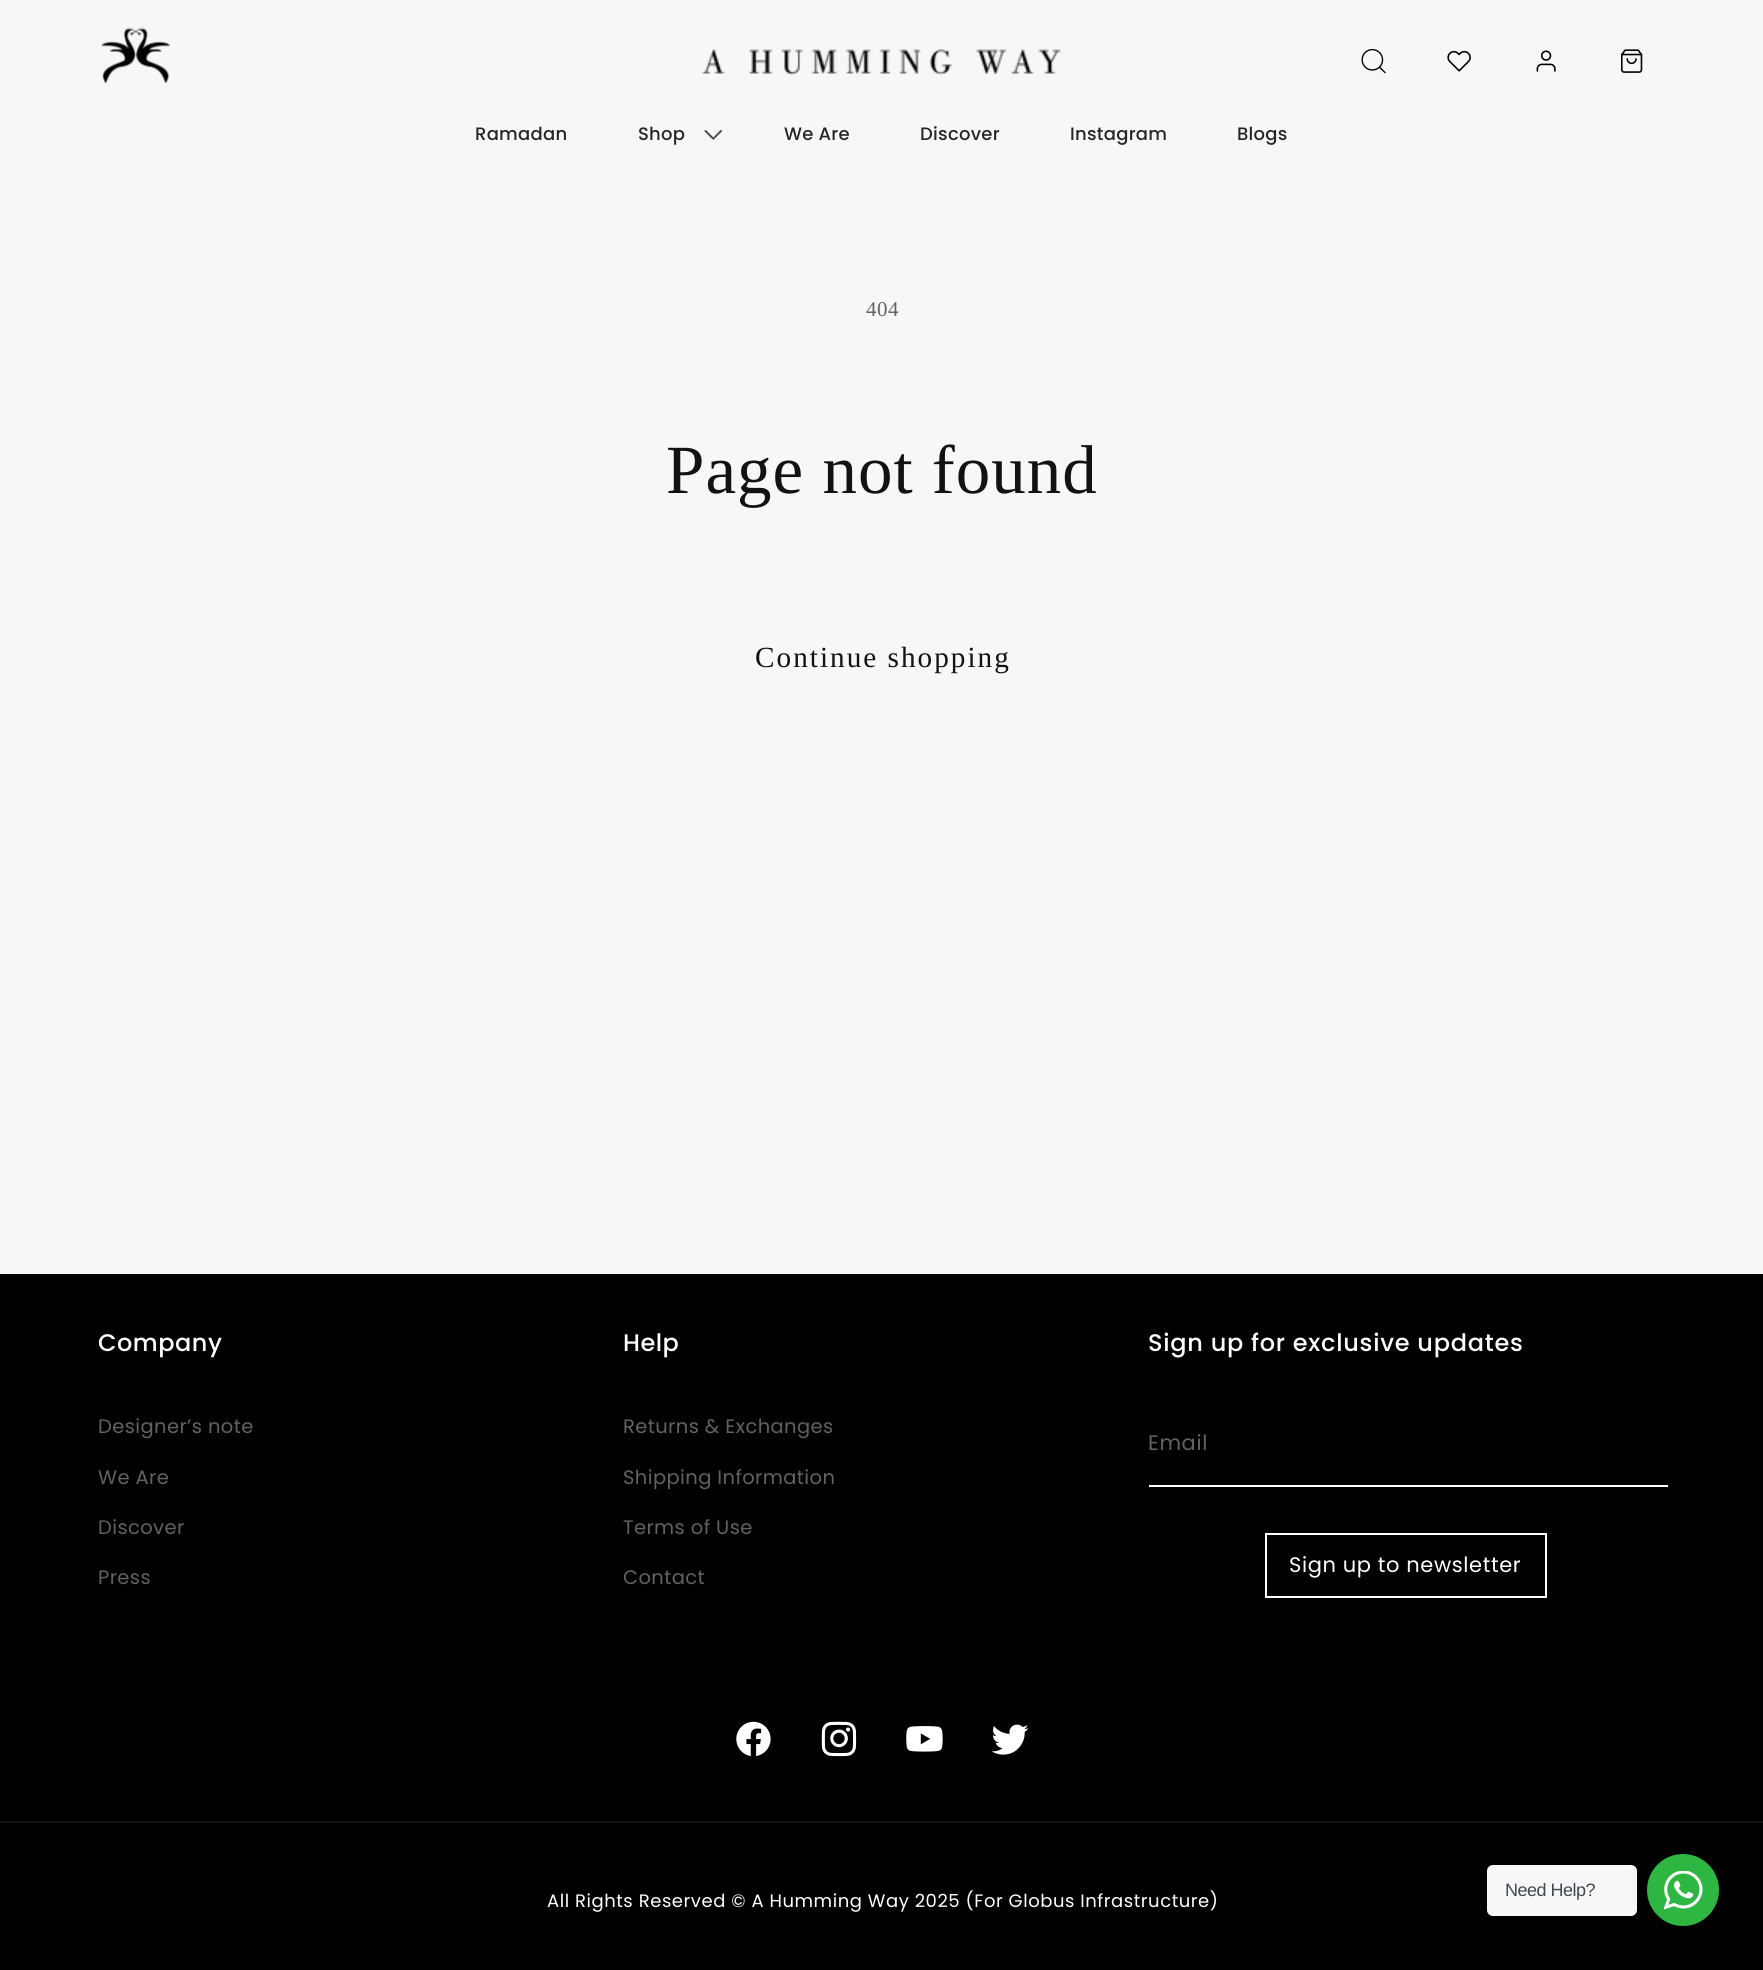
import math
import cairo

surface = cairo.ImageSurface(cairo.FORMAT_RGB24, 1763, 1970)
ctx = cairo.Context(surface)
options = cairo.FontOptions()
options.set_hint_metrics(cairo.HINT_METRICS_OFF)
options.set_hint_style(cairo.HINT_STYLE_NONE)
ctx.set_font_options(options)
ctx.set_miter_limit(4)


def set_color(code):
    ctx.set_source_rgb(*(v / 255 for v in bytes.fromhex(code[-6:])))


def draw_spaced(x, y, s, letter, word):
    ctx.move_to(x, y)
    for ch in s:
        ctx.show_text(ch)
        ctx.rel_move_to(letter + word * (ch == ' '), 0)


def fill_rect(x, y, w, h, color):
    set_color(color)
    ctx.rectangle(x, y, w, h)
    ctx.fill()


def rounded_rect(x, y, w, h, r):
    ctx.new_sub_path()
    for i, (u, v) in enumerate([(x + w - r, y + h - r), (x + r, y + h - r), (x + r, y + r), (x + w - r, y + r)]):
        ctx.arc(u, v, r, i * math.pi / 2, (i + 1) * math.pi / 2)
    ctx.close_path()


def draw_image(path, x, y, w, h):
    ctx.save()
    ctx.set_source_surface(cairo.ImageSurface.create_from_png(path), x, y)
    ctx.rectangle(x, y, w, h)
    ctx.fill()
    ctx.restore()


set_color("#f7f7f7")
ctx.paint()
draw_image("assets/img1.png", 101, 26, 70, 58)
draw_image("assets/img2.png", 702, 49, 359, 26)
draw_image("assets/img3.png", 1361, 48, 25, 26)
draw_image("assets/img4.png", 1447, 50, 24, 22)
draw_image("assets/img5.png", 1536, 50, 20, 22)
draw_image("assets/img6.png", 1621, 49, 22, 24)
ctx.select_font_face("Poppins Medium")
ctx.set_font_size(18)
set_color("#272727")
draw_spaced(475, 140, "Ramadan", 0.25, 0)
draw_spaced(638, 140, "Shop", 0.25, 0)
draw_image("assets/img7.png", 704, 130, 18, 10)
draw_spaced(784, 140, "We Are", 0.25, 0)
draw_spaced(920, 140, "Discover", 0.25, 0)
draw_spaced(1070, 140, "Instagram", 0.25, 0)
draw_spaced(1237, 140, "Blogs", 0.25, 0)
ctx.select_font_face("Liberation Serif")
ctx.set_font_size(21)
set_color("#666161")
draw_spaced(866, 316, "404", 0.5, 0)
ctx.set_font_size(69)
set_color("#121212")
draw_spaced(666, 493, "Page not found", 1, 0)
ctx.set_font_size(29.25)
draw_spaced(755, 667, "Continue shopping", 2, 0)
fill_rect(0, 1274, 1763, 696, "#000000")
ctx.select_font_face("Poppins Medium")
ctx.set_font_size(24)
set_color("#ffffff")
draw_spaced(98, 1351, "Company", 0.5, 0)
ctx.select_font_face("Poppins")
ctx.set_font_size(19.5)
set_color("#666161")
draw_spaced(98, 1433, "Designer’s note", 0.4, 0)
draw_spaced(98, 1484, "We Are", 0.4, 0)
draw_spaced(98, 1534, "Discover", 0.4, 0)
draw_spaced(98, 1584, "Press", 0.4, 0)
ctx.select_font_face("Poppins Medium")
ctx.set_font_size(24)
set_color("#ffffff")
draw_spaced(623, 1351, "Help", 0.5, 0)
ctx.select_font_face("Poppins")
ctx.set_font_size(19.5)
set_color("#666161")
draw_spaced(623, 1433, "Returns & Exchanges", 0.4, 0)
draw_spaced(623, 1484, "Shipping Information", 0.4, 0)
draw_spaced(623, 1534, "Terms of Use", 0.4, 0)
draw_spaced(623, 1584, "Contact", 0.4, 0)
ctx.select_font_face("Poppins Medium")
ctx.set_font_size(24)
set_color("#ffffff")
draw_spaced(1148, 1351, "Sign up for exclusive updates", 0.75, 0)
ctx.select_font_face("Poppins")
ctx.set_font_size(21)
set_color("#666161")
draw_spaced(1148, 1450, "Email", 0.6, 0)
fill_rect(1149, 1485, 519, 2, "#ffffff")
ctx.rectangle(1266, 1534, 280, 63)
ctx.stroke()
draw_spaced(1289, 1572, "Sign up to newsletter", 0.6, 0)
draw_image("assets/img8.png", 736, 1721, 35, 35)
draw_image("assets/img9.png", 821, 1721, 36, 36)
draw_image("assets/img10.png", 906, 1726, 37, 26)
draw_image("assets/img11.png", 991, 1724, 38, 31)
fill_rect(0, 1821, 1763, 2, "#141414")
ctx.set_font_size(18)
set_color("#ffffff")
draw_spaced(547, 1907, "All Rights Reserved © A Humming Way 2025 (For Globus Infrastructure)", 0.55, 0)
set_color("#f5f7f9")
rounded_rect(1487, 1865, 150, 51, 6)
ctx.fill()
ctx.select_font_face("Liberation Sans")
set_color("#43474e")
draw_spaced(1505, 1896, "Need Help?", -0.5, 0)
set_color("#2db742")
ctx.new_path()
ctx.arc(1683, 1890, 36, 0, 2 * math.pi)
ctx.fill()
draw_image("assets/img12.png", 1664, 1871, 39, 39)
surface.write_to_png("output.png")
